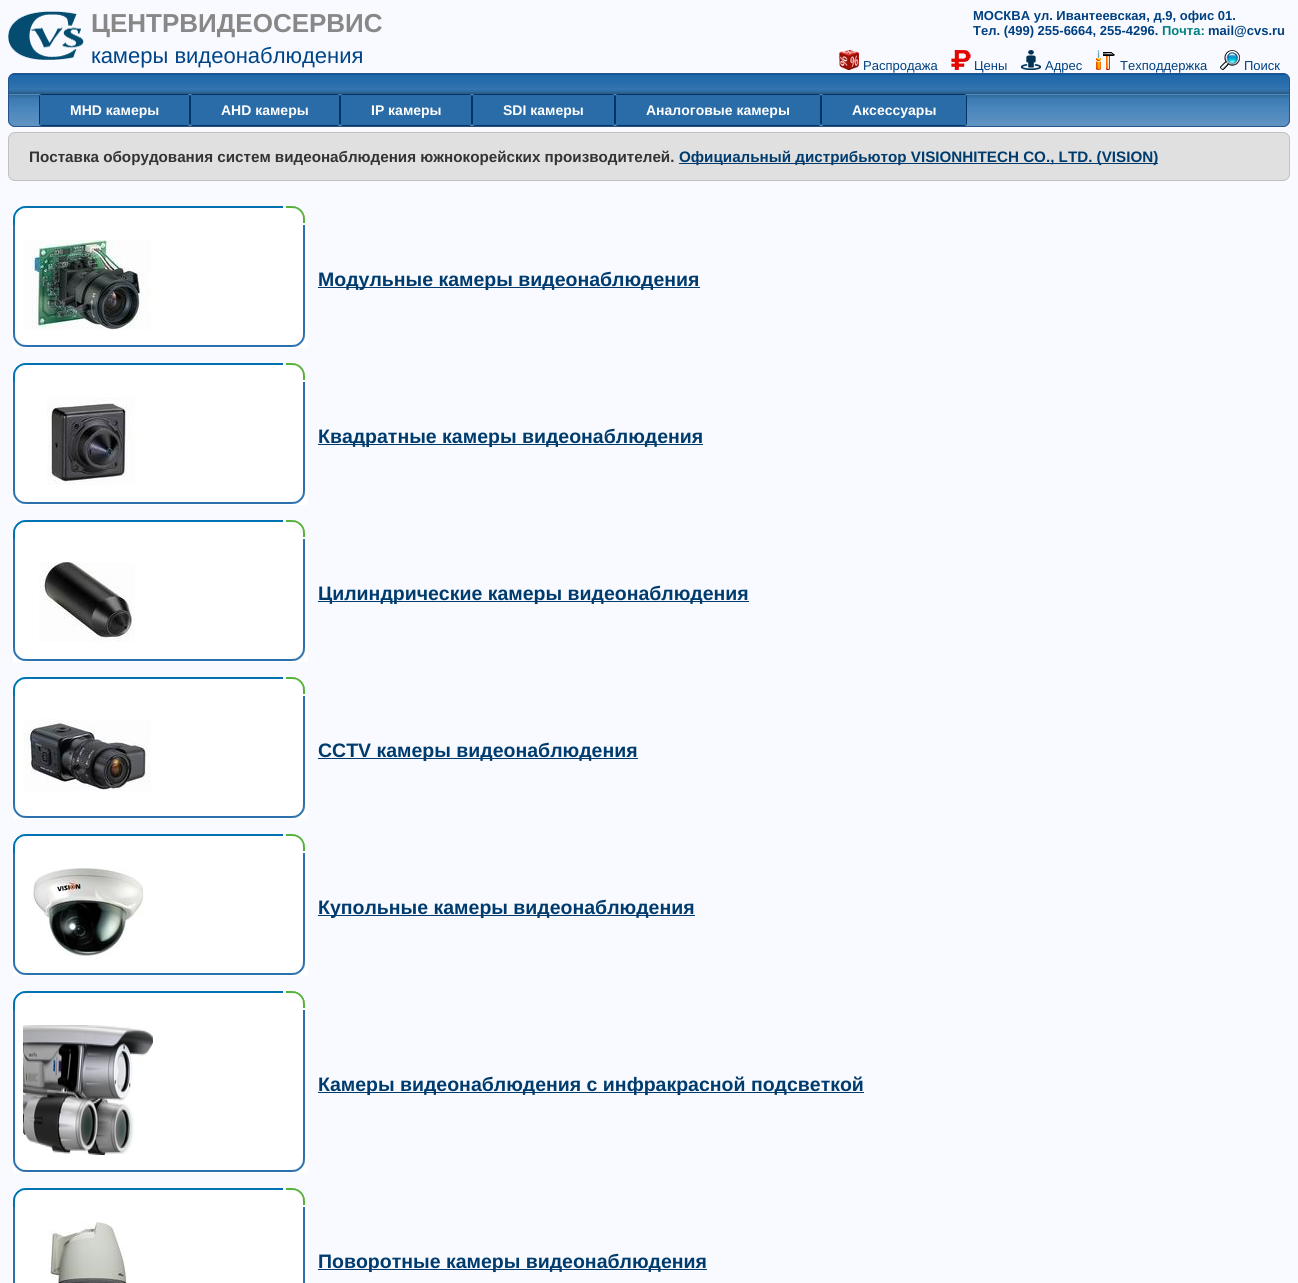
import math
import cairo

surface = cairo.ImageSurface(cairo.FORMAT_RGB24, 1298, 1283)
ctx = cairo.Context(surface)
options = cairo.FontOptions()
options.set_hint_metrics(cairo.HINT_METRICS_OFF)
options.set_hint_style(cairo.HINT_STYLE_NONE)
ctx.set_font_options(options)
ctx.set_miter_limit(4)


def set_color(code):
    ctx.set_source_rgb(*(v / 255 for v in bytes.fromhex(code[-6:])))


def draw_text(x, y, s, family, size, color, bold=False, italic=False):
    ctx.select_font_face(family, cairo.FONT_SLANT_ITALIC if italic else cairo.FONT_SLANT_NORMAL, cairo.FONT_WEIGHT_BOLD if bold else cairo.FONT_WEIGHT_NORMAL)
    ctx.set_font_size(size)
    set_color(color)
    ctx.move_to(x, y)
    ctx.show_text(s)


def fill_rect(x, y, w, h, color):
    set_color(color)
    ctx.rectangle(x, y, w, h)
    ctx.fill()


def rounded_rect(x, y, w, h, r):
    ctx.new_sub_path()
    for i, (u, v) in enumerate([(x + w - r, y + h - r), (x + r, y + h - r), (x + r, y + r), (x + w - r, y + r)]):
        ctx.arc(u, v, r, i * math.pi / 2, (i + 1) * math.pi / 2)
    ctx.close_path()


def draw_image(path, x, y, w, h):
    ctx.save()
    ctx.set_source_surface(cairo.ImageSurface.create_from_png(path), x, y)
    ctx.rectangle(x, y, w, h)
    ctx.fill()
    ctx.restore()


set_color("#f8faff")
ctx.paint()
draw_image("assets/img1.png", 8, 11, 76, 49)
draw_text(91, 32, "ЦЕНТРВИДЕОСЕРВИС", "Liberation Sans", 26, "#888888", bold=True)
draw_text(91, 63, "камеры видеонаблюдения", "Liberation Sans", 22, "#004488")
draw_text(973, 20, "МОСКВА ул. Ивантеевская, д.9, офис 01.", "Liberation Sans", 13, "#004080", bold=True)
draw_text(973, 35, "Тел. (499) 255-6664, 255-4296.", "Liberation Sans", 13, "#004080", bold=True)
draw_text(1162, 35, "Почта:", "Liberation Sans", 13, "#008080", bold=True)
draw_text(1208, 35, "mail@cvs.ru", "Liberation Sans", 13, "#004080", bold=True)
draw_image("assets/img2.png", 839, 50, 20, 20)
draw_text(863, 70, "Распродажа", "Liberation Sans", 13, "#004080")
draw_image("assets/img3.png", 951, 50, 20, 20)
draw_text(974, 70, "Цены", "Liberation Sans", 13, "#004080")
draw_image("assets/img4.png", 1021, 50, 20, 20)
draw_text(1045, 70, "Адрес", "Liberation Sans", 13, "#004080")
draw_image("assets/img5.png", 1096, 50, 19, 20)
draw_text(1120, 70, "Техподдержка", "Liberation Sans", 13, "#004080")
draw_image("assets/img6.png", 1220, 50, 20, 20)
draw_text(1244, 70, "Поиск", "Liberation Sans", 13, "#004080")
draw_image("assets/img7.png", 8, 73, 1282, 54)
rounded_rect(8.5, 73.5, 1281, 53, 6.5)
set_color("#275388")
ctx.set_line_width(1)
ctx.stroke()
rounded_rect(39.5, 94.5, 150, 31, 2.5)
set_color("#003366")
ctx.stroke()
fill_rect(40, 95, 149, 30, "#2a6ca7")
draw_text(70, 115, "MHD камеры", "Liberation Sans", 14, "#ffffff", bold=True)
rounded_rect(190.5, 94.5, 149, 31, 2.5)
set_color("#003366")
ctx.stroke()
fill_rect(191, 95, 148, 30, "#2a6ca7")
draw_text(221, 115, "AHD камеры", "Liberation Sans", 14, "#ffffff", bold=True)
rounded_rect(340.5, 94.5, 131, 31, 2.5)
set_color("#003366")
ctx.stroke()
fill_rect(341, 95, 130, 30, "#2a6ca7")
draw_text(371, 115, "IP камеры", "Liberation Sans", 14, "#ffffff", bold=True)
rounded_rect(472.5, 94.5, 142, 31, 2.5)
set_color("#003366")
ctx.stroke()
fill_rect(473, 95, 141, 30, "#2a6ca7")
draw_text(503, 115, "SDI камеры", "Liberation Sans", 14, "#ffffff", bold=True)
rounded_rect(615.5, 94.5, 205, 31, 2.5)
set_color("#003366")
ctx.stroke()
fill_rect(616, 95, 204, 30, "#2a6ca7")
draw_text(646, 115, "Аналоговые камеры", "Liberation Sans", 14, "#ffffff", bold=True)
rounded_rect(821.5, 94.5, 145, 31, 2.5)
set_color("#003366")
ctx.stroke()
fill_rect(822, 95, 144, 30, "#2a6ca7")
draw_text(852, 115, "Аксессуары", "Liberation Sans", 14, "#ffffff", bold=True)
set_color("#e0e0e0")
rounded_rect(8.5, 132.5, 1281, 48, 6.5)
ctx.fill_preserve()
set_color("#c0c0c0")
ctx.stroke()
draw_text(29, 162, "Поставка оборудования систем видеонаблюдения южнокорейских производителей.", "Liberation Sans", 15.2, "#333333", bold=True)
fill_rect(679, 163, 479, 1, "#003b6e")
draw_text(679, 162, "Официальный дистрибьютор VISIONHITECH CO., LTD. (VISION)", "Liberation Sans", 15.2, "#003b6e", bold=True)
draw_image("assets/img8.png", 13, 206, 292, 19)
fill_rect(13, 225, 295, 123, "#ffffff")
draw_image("assets/img9.png", 13, 225, 292, 122)
draw_image("assets/img10.png", 23, 240, 128, 90)
fill_rect(318, 287, 382, 1, "#003b6e")
draw_text(318, 286, "Модульные камеры видеонаблюдения", "Liberation Sans", 19.5, "#003b6e", bold=True)
draw_image("assets/img8.png", 13, 363, 292, 19)
fill_rect(13, 382, 295, 123, "#ffffff")
draw_image("assets/img9.png", 13, 382, 292, 122)
draw_image("assets/img11.png", 47, 397, 88, 88)
fill_rect(318, 444, 385, 1, "#003b6e")
draw_text(318, 443, "Квадратные камеры видеонаблюдения", "Liberation Sans", 19.5, "#003b6e", bold=True)
draw_image("assets/img8.png", 13, 520, 292, 19)
fill_rect(13, 539, 295, 123, "#ffffff")
draw_image("assets/img9.png", 13, 539, 292, 122)
draw_image("assets/img12.png", 39, 562, 96, 80)
fill_rect(318, 601, 431, 1, "#003b6e")
draw_text(318, 600, "Цилиндрические камеры видеонаблюдения", "Liberation Sans", 19.5, "#003b6e", bold=True)
draw_image("assets/img8.png", 13, 677, 292, 19)
fill_rect(13, 696, 295, 123, "#ffffff")
draw_image("assets/img9.png", 13, 696, 292, 122)
draw_image("assets/img13.png", 23, 719, 128, 72)
fill_rect(318, 758, 320, 1, "#003b6e")
draw_text(318, 757, "CCTV камеры видеонаблюдения", "Liberation Sans", 19.5, "#003b6e", bold=True)
draw_image("assets/img8.png", 13, 834, 292, 19)
fill_rect(13, 853, 295, 123, "#ffffff")
draw_image("assets/img9.png", 13, 853, 292, 122)
draw_image("assets/img14.png", 32, 868, 112, 88)
fill_rect(318, 915, 377, 1, "#003b6e")
draw_text(318, 914, "Купольные камеры видеонаблюдения", "Liberation Sans", 19.5, "#003b6e", bold=True)
draw_image("assets/img8.png", 13, 991, 292, 19)
fill_rect(13, 1010, 295, 163, "#ffffff")
draw_image("assets/img15.png", 13, 1010, 292, 162)
draw_image("assets/img16.png", 23, 1025, 130, 130)
fill_rect(318, 1092, 546, 1, "#003b6e")
draw_text(318, 1091, "Камеры видеонаблюдения с инфракрасной подсветкой", "Liberation Sans", 19.5, "#003b6e", bold=True)
draw_image("assets/img8.png", 13, 1188, 292, 19)
fill_rect(305, 1207, 3, 76, "#ffffff")
draw_image("assets/img17.png", 13, 1207, 292, 76)
draw_image("assets/img18.png", 47, 1222, 80, 61)
fill_rect(318, 1269, 389, 1, "#003b6e")
draw_text(318, 1268, "Поворотные камеры видеонаблюдения", "Liberation Sans", 19.5, "#003b6e", bold=True)
surface.write_to_png("output.png")
